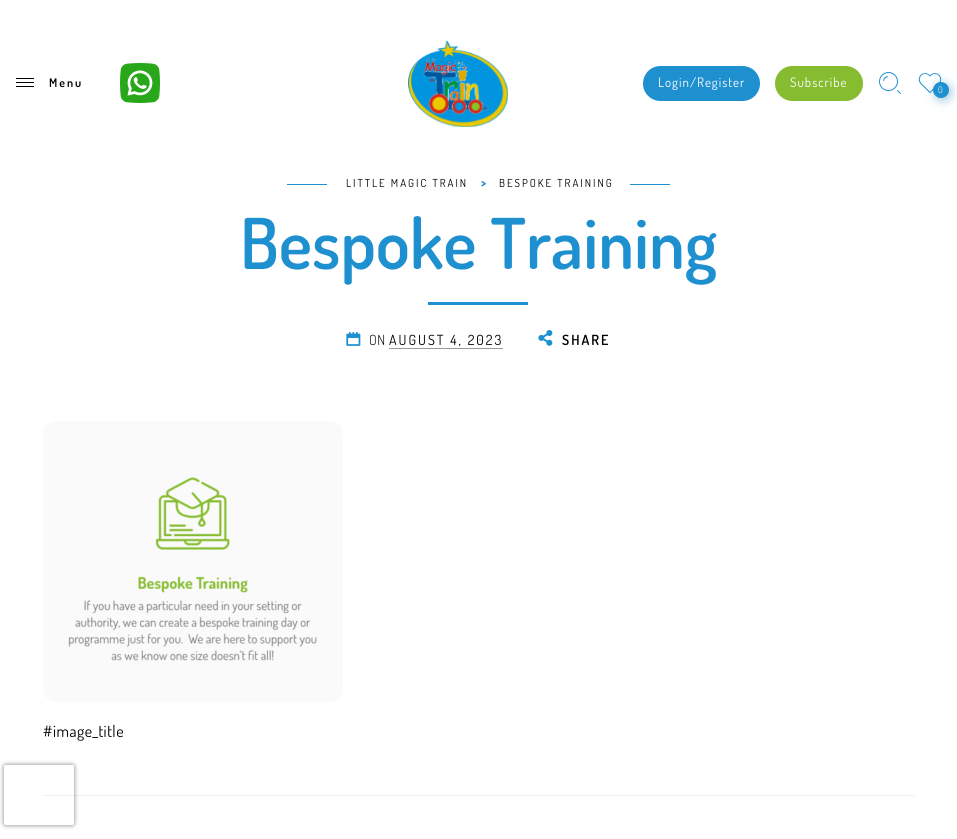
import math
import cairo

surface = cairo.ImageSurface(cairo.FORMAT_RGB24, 957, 839)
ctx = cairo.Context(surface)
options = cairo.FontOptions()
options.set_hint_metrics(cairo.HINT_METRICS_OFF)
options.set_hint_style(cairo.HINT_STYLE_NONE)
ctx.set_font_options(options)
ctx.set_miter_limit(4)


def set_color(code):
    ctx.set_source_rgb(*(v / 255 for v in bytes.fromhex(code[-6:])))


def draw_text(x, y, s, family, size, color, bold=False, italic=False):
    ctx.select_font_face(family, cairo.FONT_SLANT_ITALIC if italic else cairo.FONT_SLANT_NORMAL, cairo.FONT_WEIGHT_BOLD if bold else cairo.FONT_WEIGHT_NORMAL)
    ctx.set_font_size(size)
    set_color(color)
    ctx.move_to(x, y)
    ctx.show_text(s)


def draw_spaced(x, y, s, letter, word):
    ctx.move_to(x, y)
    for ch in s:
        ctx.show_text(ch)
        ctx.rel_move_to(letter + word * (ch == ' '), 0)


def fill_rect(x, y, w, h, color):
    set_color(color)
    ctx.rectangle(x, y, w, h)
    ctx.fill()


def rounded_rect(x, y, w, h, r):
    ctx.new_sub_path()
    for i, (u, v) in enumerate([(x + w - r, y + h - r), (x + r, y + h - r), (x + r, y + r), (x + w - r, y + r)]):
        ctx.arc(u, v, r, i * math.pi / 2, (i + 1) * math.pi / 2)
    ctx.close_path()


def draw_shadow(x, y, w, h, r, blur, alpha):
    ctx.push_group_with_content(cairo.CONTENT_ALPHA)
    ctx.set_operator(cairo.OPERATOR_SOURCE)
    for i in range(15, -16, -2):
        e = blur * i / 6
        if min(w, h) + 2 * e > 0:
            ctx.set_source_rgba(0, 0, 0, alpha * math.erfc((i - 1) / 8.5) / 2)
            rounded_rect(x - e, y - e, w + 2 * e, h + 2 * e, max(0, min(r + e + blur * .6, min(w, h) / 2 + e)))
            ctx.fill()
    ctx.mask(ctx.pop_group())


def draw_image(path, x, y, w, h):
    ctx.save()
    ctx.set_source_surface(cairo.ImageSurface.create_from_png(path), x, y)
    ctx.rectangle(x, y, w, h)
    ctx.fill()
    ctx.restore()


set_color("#ffffff")
ctx.paint()
fill_rect(16, 82, 18, 1, "#000000")
fill_rect(16, 78, 18, 1, "#000000")
fill_rect(16, 86, 18, 1, "#000000")
ctx.select_font_face("Dosis SemiBold")
ctx.set_font_size(12)
draw_spaced(49, 87, "Menu", 2, 0)
draw_image("assets/img1.png", 120, 63, 40, 40)
draw_image("assets/img2.png", 408, 40, 100, 87)
set_color("#1f90cf")
rounded_rect(643, 66, 117, 35, 17.5)
ctx.fill()
ctx.select_font_face("Dosis")
ctx.set_font_size(13)
set_color("#ffffff")
draw_spaced(658, 87, "Login/Register", 1, 0)
set_color("#86bc2f")
rounded_rect(775, 66, 88, 35, 17.5)
ctx.fill()
set_color("#ffffff")
draw_spaced(790, 87, "Subscribe", 1, 0)
draw_image("assets/img3.png", 879, 72, 22, 22)
draw_image("assets/img4.png", 918, 73, 24, 20)
set_color("#1a7ab0")
draw_shadow(935, 84, 16, 16, 8, 5, 0.4)
set_color("#1f90cf")
ctx.arc(941, 90, 8, 0, 2 * math.pi)
ctx.fill()
ctx.select_font_face("Dosis Light")
ctx.set_font_size(9)
set_color("#ffffff")
draw_spaced(938, 93, "0", 0.5, 0)
fill_rect(287, 184, 40, 1, "#1f90cf")
ctx.select_font_face("Dosis")
ctx.set_font_size(11)
set_color("#000000")
draw_spaced(346, 187, "LITTLE MAGIC TRAIN", 2, 0)
ctx.select_font_face("Dosis ExtraBold")
ctx.set_font_size(12)
set_color("#1f90cf")
draw_spaced(481, 187, ">", 0.5, 0)
ctx.select_font_face("Dosis")
ctx.set_font_size(11)
set_color("#000000")
draw_spaced(499, 187, "BESPOKE TRAINING", 2, 0)
fill_rect(630, 184, 40, 1, "#1f90cf")
draw_text(240, 269, "Bespoke Training", "Dosis SemiBold", 70, "#1f90cf")
fill_rect(428, 302, 100, 3, "#1f90cf")
draw_image("assets/img5.png", 346, 331, 15, 15)
ctx.select_font_face("Dosis Light")
ctx.set_font_size(14)
set_color("#000000")
draw_spaced(369, 345, "ON", 0.5, 0)
ctx.select_font_face("Dosis")
draw_spaced(389, 345, "AUGUST 4, 2023", 2, 0)
fill_rect(389, 348, 114, 1, "#999999")
draw_image("assets/img6.png", 538, 330, 15, 16)
ctx.select_font_face("Dosis SemiBold")
set_color("#000000")
draw_spaced(562, 345, "SHARE", 2, 0)
draw_image("assets/img7.png", 43, 421, 300, 281)
ctx.select_font_face("Dosis")
ctx.set_font_size(16)
draw_spaced(43, 737, "#image_title", 0.5, 0)
fill_rect(43, 795, 872, 1, "#f0f0f0")
ctx.save()
ctx.set_fill_rule(cairo.FILL_RULE_EVEN_ODD)
ctx.new_path()
ctx.move_to(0, 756)
ctx.line_to(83, 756)
ctx.line_to(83, 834)
ctx.line_to(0, 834)
ctx.close_path()
ctx.move_to(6, 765)
ctx.line_to(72, 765)
ctx.curve_to(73, 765, 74, 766, 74, 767)
ctx.line_to(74, 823)
ctx.curve_to(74, 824, 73, 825, 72, 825)
ctx.line_to(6, 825)
ctx.curve_to(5, 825, 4, 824, 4, 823)
ctx.line_to(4, 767)
ctx.curve_to(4, 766, 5, 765, 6, 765)
ctx.close_path()
ctx.clip()
set_color("#808080")
draw_shadow(4, 765, 70, 60, 2, 2.5, 1)
ctx.restore()
surface.write_to_png("output.png")
